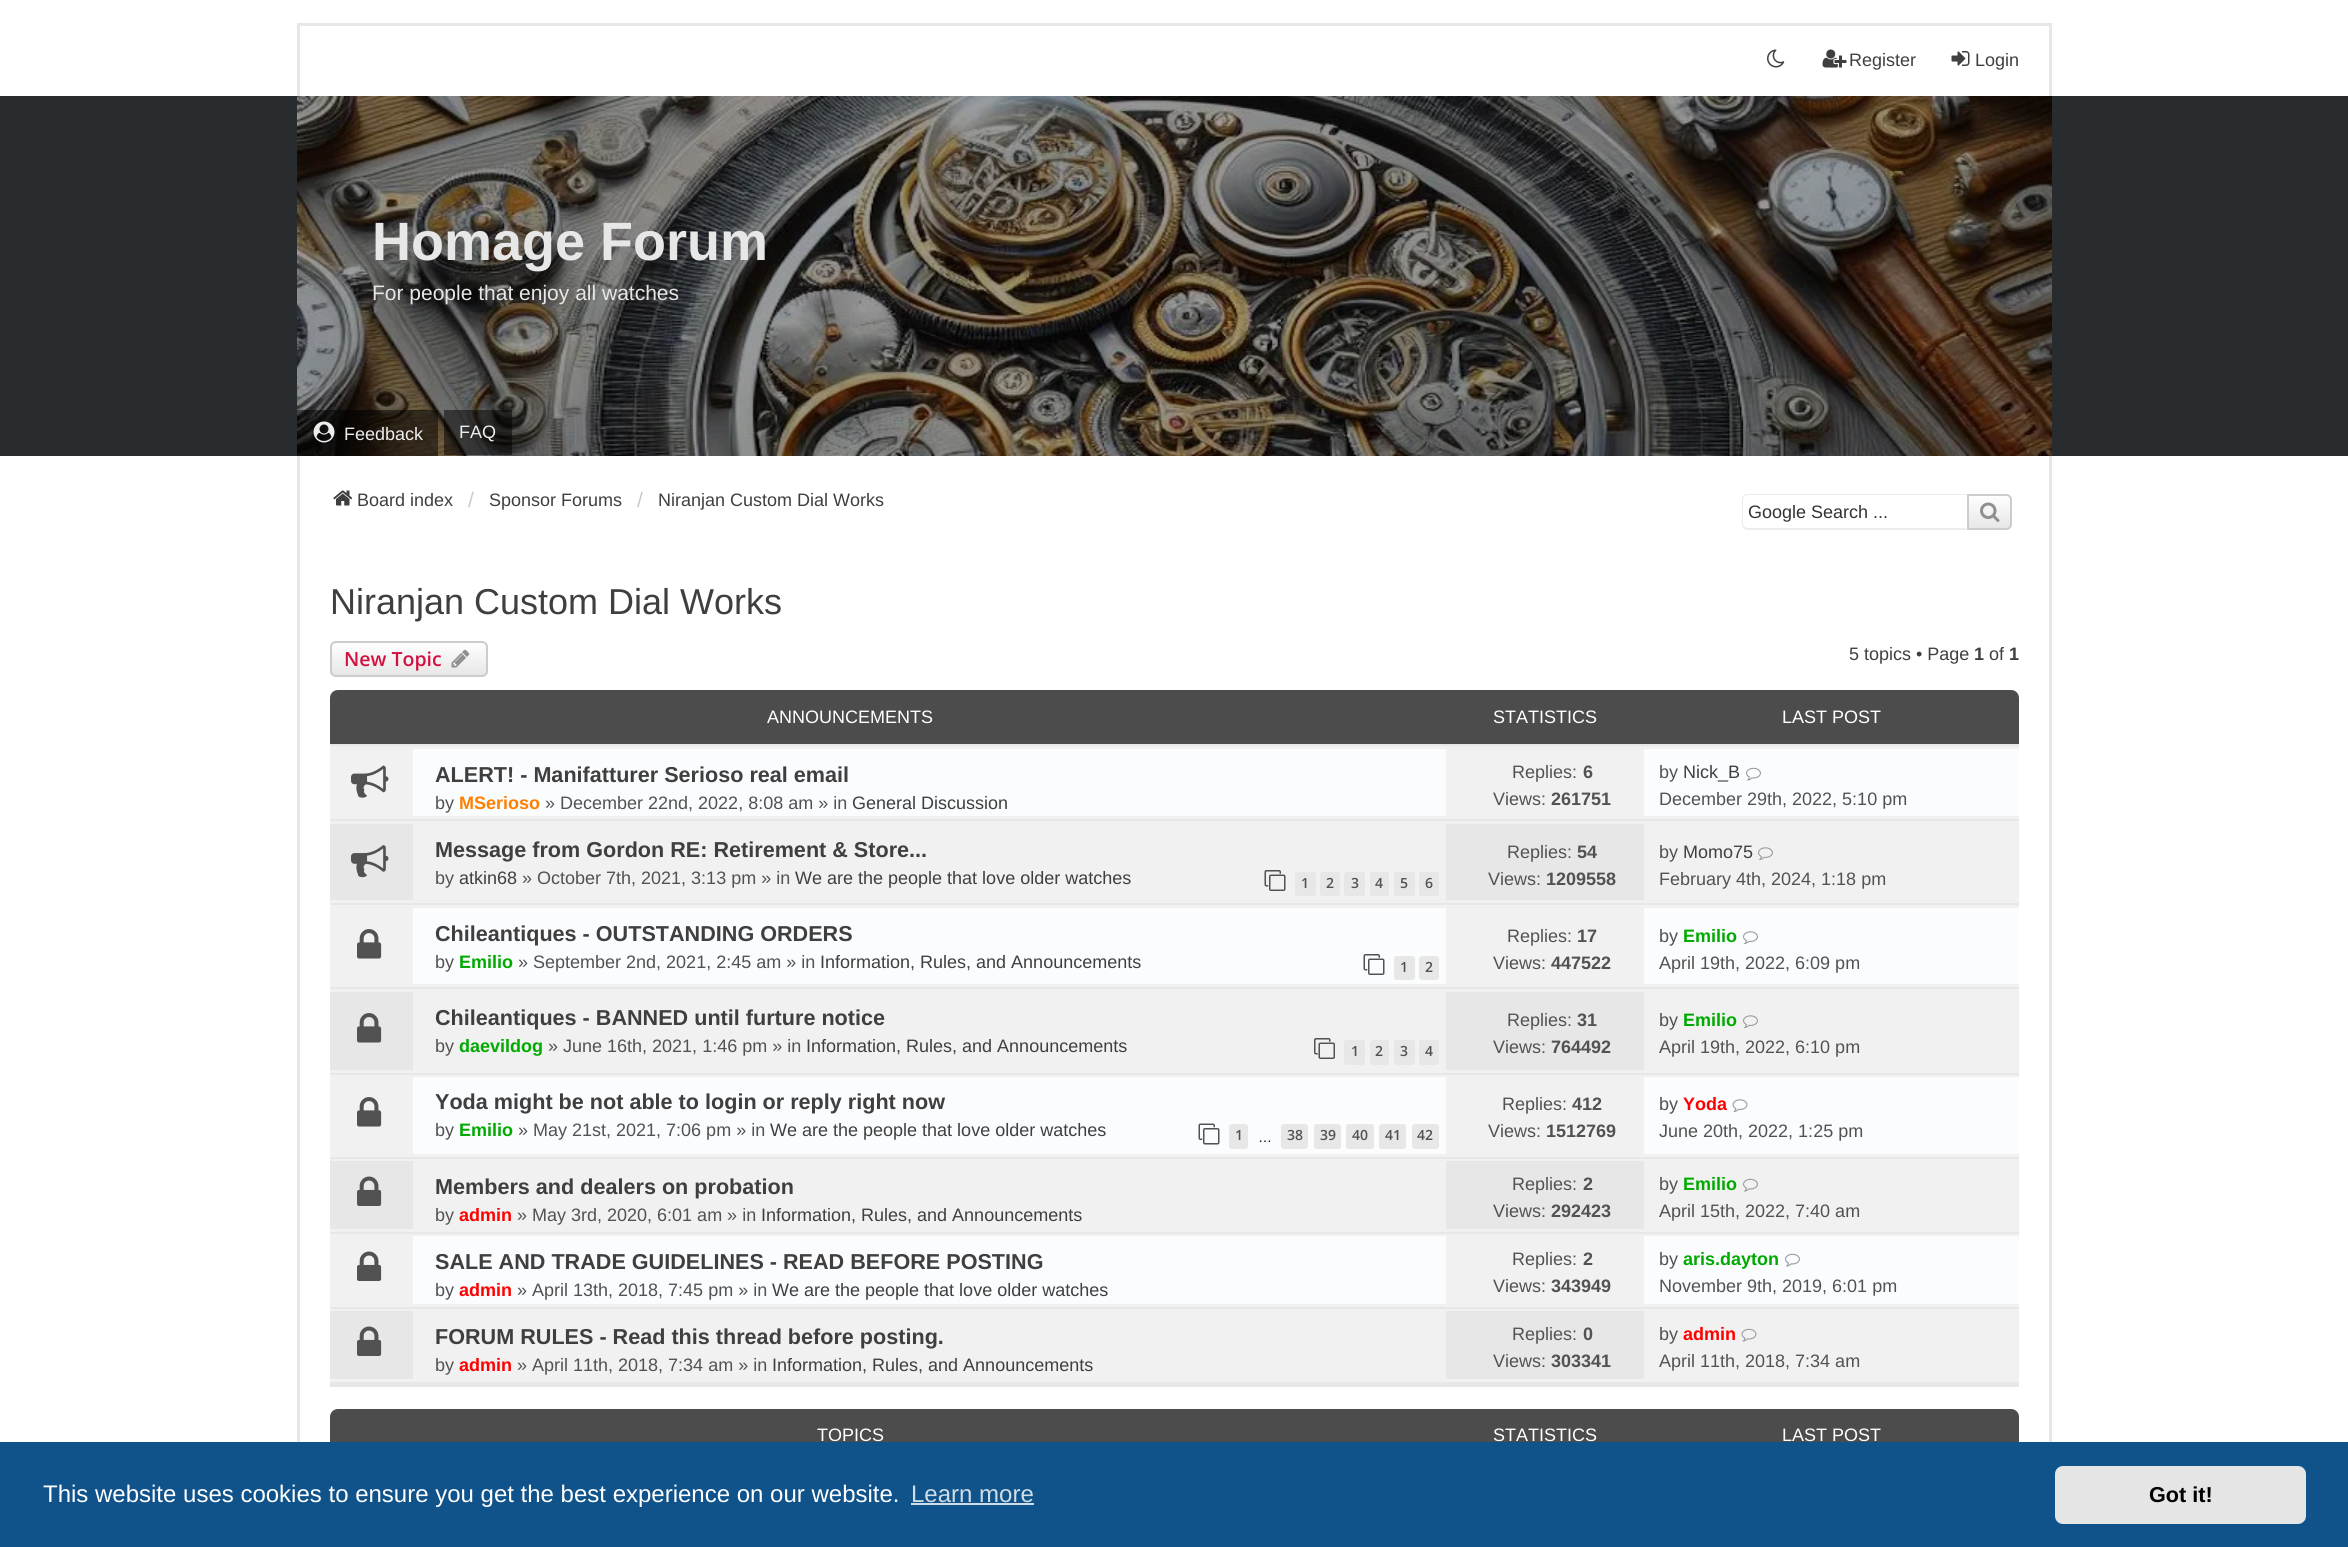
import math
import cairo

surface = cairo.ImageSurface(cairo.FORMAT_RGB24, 2348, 1547)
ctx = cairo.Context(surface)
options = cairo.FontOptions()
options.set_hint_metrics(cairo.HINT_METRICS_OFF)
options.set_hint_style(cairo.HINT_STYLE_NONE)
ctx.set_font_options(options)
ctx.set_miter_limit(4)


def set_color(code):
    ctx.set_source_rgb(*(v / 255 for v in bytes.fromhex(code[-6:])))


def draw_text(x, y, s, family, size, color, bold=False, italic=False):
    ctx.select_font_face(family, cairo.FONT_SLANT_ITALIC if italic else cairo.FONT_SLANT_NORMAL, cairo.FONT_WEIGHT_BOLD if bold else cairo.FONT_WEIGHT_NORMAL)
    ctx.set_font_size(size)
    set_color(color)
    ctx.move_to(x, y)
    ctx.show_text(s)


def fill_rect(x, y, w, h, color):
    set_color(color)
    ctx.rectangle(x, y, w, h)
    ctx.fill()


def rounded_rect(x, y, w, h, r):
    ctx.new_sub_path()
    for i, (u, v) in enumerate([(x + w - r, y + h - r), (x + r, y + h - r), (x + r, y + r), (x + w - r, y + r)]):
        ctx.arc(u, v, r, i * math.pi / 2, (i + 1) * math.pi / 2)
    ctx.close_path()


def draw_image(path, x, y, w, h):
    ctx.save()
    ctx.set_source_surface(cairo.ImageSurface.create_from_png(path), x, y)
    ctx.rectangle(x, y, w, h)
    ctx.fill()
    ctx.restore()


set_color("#ffffff")
ctx.paint()
fill_rect(297, 23, 1755, 3, "#e7e7e7")
fill_rect(2049, 23, 3, 73, "#e7e7e7")
fill_rect(297, 23, 3, 73, "#e7e7e7")
draw_image("assets/img1.png", 1767, 49, 18, 19)
draw_image("assets/img2.png", 1822, 49, 25, 19)
draw_text(1849, 66, "Register", "Liberation Sans", 18, "#3f3f3f")
draw_image("assets/img3.png", 1951, 51, 19, 15)
draw_text(1975, 66, "Login", "Liberation Sans", 18, "#3f3f3f")
fill_rect(0, 96, 2348, 360, "#292c2f")
draw_image("assets/img4.png", 297, 96, 1755, 360)
draw_text(372, 260, "Homage Forum", "Liberation Sans", 54, "#e7e7e7", bold=True)
draw_text(372, 300, "For people that enjoy all watches", "Liberation Sans", 21, "#e7e7e7")
ctx.set_source_rgba(0, 0, 0, 0.5)
ctx.rectangle(297, 410, 141, 46)
ctx.fill()
draw_image("assets/img5.png", 313, 421, 22, 22)
draw_text(344, 440, "Feedback", "Liberation Sans", 18, "#eeeeee")
ctx.set_source_rgba(0, 0, 0, 0.5)
ctx.rectangle(444, 410, 68, 45)
ctx.fill()
draw_text(459, 438, "FAQ", "Liberation Sans", 18, "#eeeeee")
fill_rect(2049, 456, 3, 986, "#e7e7e7")
fill_rect(297, 456, 3, 986, "#e7e7e7")
draw_image("assets/img6.png", 333, 490, 20, 16)
draw_text(357, 506, "Board index", "Liberation Sans", 18, "#3f3f3f")
draw_text(468, 507, "/", "Liberation Sans", 21, "#cacaca")
draw_text(489, 506, "Sponsor Forums", "Liberation Sans", 18, "#3f3f3f")
draw_text(637, 507, "/", "Liberation Sans", 21, "#cacaca")
draw_text(658, 506, "Niranjan Custom Dial Works", "Liberation Sans", 18, "#3f3f3f")
set_color("#ececec")
ctx.set_fill_rule(cairo.FILL_RULE_EVEN_ODD)
ctx.new_path()
ctx.move_to(1748, 494)
ctx.line_to(1966, 494)
ctx.line_to(1966, 530)
ctx.line_to(1748, 530)
ctx.curve_to(1744, 530, 1742, 527, 1742, 524)
ctx.line_to(1742, 500)
ctx.curve_to(1742, 496, 1744, 494, 1748, 494)
ctx.close_path()
ctx.move_to(1748, 495)
ctx.line_to(1966, 495)
ctx.line_to(1966, 528)
ctx.line_to(1748, 528)
ctx.curve_to(1745, 528, 1743, 526, 1743, 524)
ctx.line_to(1743, 500)
ctx.curve_to(1743, 497, 1745, 495, 1748, 495)
ctx.close_path()
ctx.fill()
draw_text(1748, 518, "Google Search ...", "Liberation Sans", 18, "#333333")
ctx.save()
ctx.set_fill_rule(cairo.FILL_RULE_WINDING)
ctx.new_path()
ctx.move_to(1967, 494)
ctx.line_to(2006, 494)
ctx.curve_to(2009.5, 494, 2012, 496.5, 2012, 500)
ctx.line_to(2012, 524)
ctx.curve_to(2012, 527.5, 2009.5, 530, 2006, 530)
ctx.line_to(1967, 530)
ctx.close_path()
ctx.clip()
gradient = cairo.LinearGradient(1989, 495, 1989, 528)
gradient.add_color_stop_rgba(0, 1, 1, 1, 1)
gradient.add_color_stop_rgba(1, 0.906, 0.906, 0.906, 1)
ctx.set_source(gradient)
ctx.rectangle(1969, 495, 43, 33)
ctx.fill()
ctx.restore()
ctx.new_path()
ctx.move_to(1968, 495)
ctx.line_to(2006, 495)
ctx.curve_to(2009, 495, 2011, 497, 2011, 500)
ctx.line_to(2011, 524)
ctx.curve_to(2011, 527, 2009, 529, 2006, 529)
ctx.line_to(1968, 529)
ctx.close_path()
set_color("#cccccc")
ctx.stroke()
draw_image("assets/img7.png", 1980, 502, 20, 20)
draw_text(330, 614, "Niranjan Custom Dial Works", "Liberation Sans", 36, "#3f3f3f")
ctx.save()
ctx.set_fill_rule(cairo.FILL_RULE_WINDING)
rounded_rect(330, 641, 158, 36, 6)
ctx.clip()
gradient = cairo.LinearGradient(409, 642, 409, 675)
gradient.add_color_stop_rgba(0, 1, 1, 1, 1)
gradient.add_color_stop_rgba(1, 0.906, 0.906, 0.906, 1)
ctx.set_source(gradient)
ctx.rectangle(330, 642, 158, 33)
ctx.fill()
ctx.restore()
rounded_rect(331, 642, 156, 34, 5)
set_color("#cccccc")
ctx.stroke()
draw_text(344, 666, "New Topic", "Open Sans SemiBold", 19.5, "#d31141")
draw_image("assets/img8.png", 451, 649, 19, 19)
draw_text(1849, 660, "5 topics • Page", "Liberation Sans", 18, "#3f3f3f")
draw_text(1974, 660, "1", "Liberation Sans", 18, "#3f3f3f", bold=True)
draw_text(1989, 660, "of", "Liberation Sans", 18, "#3f3f3f")
draw_text(2009, 660, "1", "Liberation Sans", 18, "#3f3f3f", bold=True)
set_color("#4c4c4c")
ctx.new_path()
ctx.move_to(338, 690)
ctx.line_to(2011, 690)
ctx.curve_to(2015.5, 690, 2019, 693.5, 2019, 698)
ctx.line_to(2019, 1386)
ctx.line_to(330, 1386)
ctx.line_to(330, 698)
ctx.curve_to(330, 693.5, 333.5, 690, 338, 690)
ctx.close_path()
ctx.fill()
fill_rect(330, 1382, 1689, 5, "#e7e7e7")
draw_text(767, 723, "ANNOUNCEMENTS", "Liberation Sans", 18, "#ffffff")
draw_text(1493, 723, "STATISTICS", "Liberation Sans", 18, "#ffffff")
draw_text(1782, 723, "LAST POST", "Liberation Sans", 18, "#ffffff")
fill_rect(330, 746, 1689, 636, "#f1f1f1")
fill_rect(330, 744, 1689, 2, "#e7e7e7")
draw_image("assets/img9.png", 351, 765, 38, 33)
fill_rect(413, 749, 1033, 67, "#fafcfe")
draw_text(435, 782, "ALERT! - Manifatturer Serioso real email", "Liberation Sans", 21.6, "#3f3f3f", bold=True)
draw_text(435, 809, "by", "Liberation Sans", 18, "#525252")
draw_text(459, 809, "MSerioso", "Liberation Sans", 18, "#ff8000", bold=True)
draw_text(545, 809, "» December 22nd, 2022, 8:08 am » in", "Liberation Sans", 18, "#525252")
draw_text(852, 809, "General Discussion", "Liberation Sans", 18, "#3f3f3f")
draw_text(1512, 778, "Replies:", "Liberation Sans", 18, "#525252")
draw_text(1583, 778, "6", "Liberation Sans", 18, "#525252", bold=True)
draw_text(1493, 805, "Views:", "Liberation Sans", 18, "#525252")
draw_text(1551, 805, "261751", "Liberation Sans", 18, "#525252", bold=True)
fill_rect(1644, 749, 375, 67, "#fafcfe")
draw_text(1659, 778, "by", "Liberation Sans", 18, "#525252")
draw_text(1683, 778, "Nick_B", "Liberation Sans", 18, "#3f3f3f")
draw_image("assets/img10.png", 1746, 767, 15, 14)
draw_text(1659, 805, "December 29th, 2022, 5:10 pm", "Liberation Sans", 18, "#525252")
fill_rect(330, 819, 1689, 2, "#e7e7e7")
fill_rect(330, 824, 83, 76, "#e7e7e7")
draw_image("assets/img11.png", 351, 845, 38, 33)
draw_text(435, 857, "Message from Gordon RE: Retirement & Store...", "Liberation Sans", 21.6, "#3f3f3f", bold=True)
draw_text(435, 884, "by", "Liberation Sans", 18, "#525252")
draw_text(459, 884, "atkin68", "Liberation Sans", 18, "#3f3f3f")
draw_text(522, 884, "» October 7th, 2021, 3:13 pm » in", "Liberation Sans", 18, "#525252")
draw_text(795, 884, "We are the people that love older watches", "Liberation Sans", 18, "#3f3f3f")
draw_image("assets/img12.png", 1264, 870, 22, 21)
set_color("#e7e7e7")
rounded_rect(1295, 872, 21, 24, 3)
ctx.fill()
draw_text(1301, 888, "1", "Open Sans SemiBold", 14, "#525252")
set_color("#e7e7e7")
rounded_rect(1320, 872, 20, 24, 3)
ctx.fill()
draw_text(1326, 888, "2", "Open Sans SemiBold", 14, "#525252")
set_color("#e7e7e7")
rounded_rect(1344, 872, 21, 24, 3)
ctx.fill()
draw_text(1351, 888, "3", "Open Sans SemiBold", 14, "#525252")
set_color("#e7e7e7")
rounded_rect(1370, 872, 19, 24, 3)
ctx.fill()
draw_text(1375, 888, "4", "Open Sans SemiBold", 14, "#525252")
set_color("#e7e7e7")
rounded_rect(1394, 872, 21, 24, 3)
ctx.fill()
draw_text(1400, 888, "5", "Open Sans SemiBold", 14, "#525252")
set_color("#e7e7e7")
rounded_rect(1419, 872, 20, 24, 3)
ctx.fill()
draw_text(1425, 888, "6", "Open Sans SemiBold", 14, "#525252")
fill_rect(1446, 824, 198, 76, "#e7e7e7")
draw_text(1507, 858, "Replies:", "Liberation Sans", 18, "#525252")
draw_text(1577, 858, "54", "Liberation Sans", 18, "#525252", bold=True)
draw_text(1488, 885, "Views:", "Liberation Sans", 18, "#525252")
draw_text(1546, 885, "1209558", "Liberation Sans", 18, "#525252", bold=True)
draw_text(1659, 858, "by", "Liberation Sans", 18, "#525252")
draw_text(1683, 858, "Momo75", "Liberation Sans", 18, "#3f3f3f")
draw_image("assets/img13.png", 1758, 847, 15, 14)
draw_text(1659, 885, "February 4th, 2024, 1:18 pm", "Liberation Sans", 18, "#525252")
fill_rect(330, 903, 1689, 2, "#e7e7e7")
draw_image("assets/img14.png", 357, 929, 25, 30)
fill_rect(413, 908, 1033, 76, "#fafcfe")
draw_text(435, 941, "Chileantiques - OUTSTANDING ORDERS", "Liberation Sans", 21.6, "#3f3f3f", bold=True)
draw_text(435, 968, "by", "Liberation Sans", 18, "#525252")
draw_text(459, 968, "Emilio", "Liberation Sans", 18, "#00aa00", bold=True)
draw_text(518, 968, "» September 2nd, 2021, 2:45 am » in", "Liberation Sans", 18, "#525252")
draw_text(820, 968, "Information, Rules, and Announcements", "Liberation Sans", 18, "#3f3f3f")
draw_image("assets/img15.png", 1363, 954, 22, 21)
set_color("#e7e7e7")
rounded_rect(1395, 957, 19, 22, 2)
ctx.fill_preserve()
ctx.stroke()
draw_text(1400, 972, "1", "Open Sans SemiBold", 14, "#525252")
set_color("#e7e7e7")
rounded_rect(1420, 957, 18, 22, 2)
ctx.fill_preserve()
ctx.stroke()
draw_text(1425, 972, "2", "Open Sans SemiBold", 14, "#525252")
draw_text(1507, 942, "Replies:", "Liberation Sans", 18, "#525252")
draw_text(1577, 942, "17", "Liberation Sans", 18, "#525252", bold=True)
draw_text(1493, 969, "Views:", "Liberation Sans", 18, "#525252")
draw_text(1551, 969, "447522", "Liberation Sans", 18, "#525252", bold=True)
fill_rect(1644, 908, 375, 76, "#fafcfe")
draw_text(1659, 942, "by", "Liberation Sans", 18, "#525252")
draw_text(1683, 942, "Emilio", "Liberation Sans", 18, "#00aa00", bold=True)
draw_image("assets/img16.png", 1743, 931, 15, 14)
draw_text(1659, 969, "April 19th, 2022, 6:09 pm", "Liberation Sans", 18, "#525252")
fill_rect(330, 987, 1689, 2, "#e7e7e7")
fill_rect(330, 992, 83, 78, "#e7e7e7")
draw_image("assets/img17.png", 357, 1013, 25, 30)
draw_text(435, 1025, "Chileantiques - BANNED until furture notice", "Liberation Sans", 21.6, "#3f3f3f", bold=True)
draw_text(435, 1052, "by", "Liberation Sans", 18, "#525252")
draw_text(459, 1052, "daevildog", "Liberation Sans", 18, "#00aa00", bold=True)
draw_text(548, 1052, "» June 16th, 2021, 1:46 pm » in", "Liberation Sans", 18, "#525252")
draw_text(806, 1052, "Information, Rules, and Announcements", "Liberation Sans", 18, "#3f3f3f")
draw_image("assets/img18.png", 1314, 1038, 21, 21)
set_color("#e7e7e7")
rounded_rect(1344, 1040, 21, 25, 3)
ctx.fill()
draw_text(1351, 1056, "1", "Open Sans SemiBold", 14, "#525252")
set_color("#e7e7e7")
rounded_rect(1370, 1040, 19, 25, 3)
ctx.fill()
draw_text(1375, 1056, "2", "Open Sans SemiBold", 14, "#525252")
set_color("#e7e7e7")
rounded_rect(1394, 1040, 21, 25, 3)
ctx.fill()
draw_text(1400, 1056, "3", "Open Sans SemiBold", 14, "#525252")
set_color("#e7e7e7")
rounded_rect(1419, 1040, 20, 25, 3)
ctx.fill()
draw_text(1425, 1056, "4", "Open Sans SemiBold", 14, "#525252")
fill_rect(1446, 992, 198, 78, "#e7e7e7")
draw_text(1507, 1026, "Replies:", "Liberation Sans", 18, "#525252")
draw_text(1577, 1026, "31", "Liberation Sans", 18, "#525252", bold=True)
draw_text(1493, 1053, "Views:", "Liberation Sans", 18, "#525252")
draw_text(1551, 1053, "764492", "Liberation Sans", 18, "#525252", bold=True)
draw_text(1659, 1026, "by", "Liberation Sans", 18, "#525252")
draw_text(1683, 1026, "Emilio", "Liberation Sans", 18, "#00aa00", bold=True)
draw_image("assets/img13.png", 1743, 1015, 15, 14)
draw_text(1659, 1053, "April 19th, 2022, 6:10 pm", "Liberation Sans", 18, "#525252")
fill_rect(330, 1073, 1689, 2, "#e7e7e7")
draw_image("assets/img14.png", 357, 1097, 25, 30)
fill_rect(413, 1077, 1033, 77, "#fafcfe")
draw_text(435, 1109, "Yoda might be not able to login or reply right now", "Liberation Sans", 21.6, "#3f3f3f", bold=True)
draw_text(435, 1136, "by", "Liberation Sans", 18, "#525252")
draw_text(459, 1136, "Emilio", "Liberation Sans", 18, "#00aa00", bold=True)
draw_text(518, 1136, "» May 21st, 2021, 7:06 pm » in", "Liberation Sans", 18, "#525252")
draw_text(770, 1136, "We are the people that love older watches", "Liberation Sans", 18, "#3f3f3f")
draw_image("assets/img19.png", 1198, 1123, 22, 22)
set_color("#e7e7e7")
rounded_rect(1230, 1125, 17, 23, 2)
ctx.fill_preserve()
ctx.stroke()
draw_text(1235, 1140, "1", "Open Sans SemiBold", 14, "#525252")
set_color("#e7e7e7")
rounded_rect(1282, 1125, 25, 23, 2)
ctx.fill_preserve()
ctx.stroke()
draw_text(1287, 1140, "38", "Open Sans SemiBold", 14, "#525252")
set_color("#e7e7e7")
rounded_rect(1315, 1125, 25, 23, 2)
ctx.fill_preserve()
ctx.stroke()
draw_text(1320, 1140, "39", "Open Sans SemiBold", 14, "#525252")
set_color("#e7e7e7")
rounded_rect(1347, 1125, 26, 23, 2)
ctx.fill_preserve()
ctx.stroke()
draw_text(1352, 1140, "40", "Open Sans SemiBold", 14, "#525252")
set_color("#e7e7e7")
rounded_rect(1380, 1125, 25, 23, 2)
ctx.fill_preserve()
ctx.stroke()
draw_text(1385, 1140, "41", "Open Sans SemiBold", 14, "#525252")
set_color("#e7e7e7")
rounded_rect(1413, 1125, 25, 23, 2)
ctx.fill_preserve()
ctx.stroke()
draw_text(1417, 1140, "42", "Open Sans SemiBold", 14, "#525252")
draw_text(1258, 1142, "…", "Liberation Sans", 14, "#000000")
draw_text(1502, 1110, "Replies:", "Liberation Sans", 18, "#525252")
draw_text(1572, 1110, "412", "Liberation Sans", 18, "#525252", bold=True)
draw_text(1488, 1137, "Views:", "Liberation Sans", 18, "#525252")
draw_text(1546, 1137, "1512769", "Liberation Sans", 18, "#525252", bold=True)
fill_rect(1644, 1077, 375, 77, "#fafcfe")
draw_text(1659, 1110, "by", "Liberation Sans", 18, "#525252")
draw_text(1683, 1110, "Yoda", "Liberation Sans", 18, "#ff0000", bold=True)
draw_image("assets/img20.png", 1732, 1099, 16, 14)
draw_text(1659, 1137, "June 20th, 2022, 1:25 pm", "Liberation Sans", 18, "#525252")
fill_rect(330, 1157, 1689, 2, "#e7e7e7")
fill_rect(330, 1161, 83, 68, "#e7e7e7")
draw_image("assets/img21.png", 357, 1176, 25, 30)
draw_text(435, 1194, "Members and dealers on probation", "Liberation Sans", 21.6, "#3f3f3f", bold=True)
draw_text(435, 1221, "by", "Liberation Sans", 18, "#525252")
draw_text(459, 1221, "admin", "Liberation Sans", 18, "#ff0000", bold=True)
draw_text(517, 1221, "» May 3rd, 2020, 6:01 am » in", "Liberation Sans", 18, "#525252")
draw_text(761, 1221, "Information, Rules, and Announcements", "Liberation Sans", 18, "#3f3f3f")
fill_rect(1446, 1161, 198, 68, "#e7e7e7")
draw_text(1512, 1190, "Replies:", "Liberation Sans", 18, "#525252")
draw_text(1583, 1190, "2", "Liberation Sans", 18, "#525252", bold=True)
draw_text(1493, 1217, "Views:", "Liberation Sans", 18, "#525252")
draw_text(1551, 1217, "292423", "Liberation Sans", 18, "#525252", bold=True)
draw_text(1659, 1190, "by", "Liberation Sans", 18, "#525252")
draw_text(1683, 1190, "Emilio", "Liberation Sans", 18, "#00aa00", bold=True)
draw_image("assets/img22.png", 1743, 1178, 15, 14)
draw_text(1659, 1217, "April 15th, 2022, 7:40 am", "Liberation Sans", 18, "#525252")
fill_rect(330, 1232, 1689, 2, "#e7e7e7")
draw_image("assets/img23.png", 357, 1251, 25, 30)
fill_rect(413, 1236, 1033, 68, "#fafcfe")
draw_text(435, 1269, "SALE AND TRADE GUIDELINES - READ BEFORE POSTING", "Liberation Sans", 21.6, "#3f3f3f", bold=True)
draw_text(435, 1296, "by", "Liberation Sans", 18, "#525252")
draw_text(459, 1296, "admin", "Liberation Sans", 18, "#ff0000", bold=True)
draw_text(517, 1296, "» April 13th, 2018, 7:45 pm » in", "Liberation Sans", 18, "#525252")
draw_text(772, 1296, "We are the people that love older watches", "Liberation Sans", 18, "#3f3f3f")
draw_text(1512, 1265, "Replies:", "Liberation Sans", 18, "#525252")
draw_text(1583, 1265, "2", "Liberation Sans", 18, "#525252", bold=True)
draw_text(1493, 1292, "Views:", "Liberation Sans", 18, "#525252")
draw_text(1551, 1292, "343949", "Liberation Sans", 18, "#525252", bold=True)
fill_rect(1644, 1236, 375, 68, "#fafcfe")
draw_text(1659, 1265, "by", "Liberation Sans", 18, "#525252")
draw_text(1683, 1265, "aris.dayton", "Liberation Sans", 18, "#00aa00", bold=True)
draw_image("assets/img10.png", 1785, 1253, 15, 14)
draw_text(1659, 1292, "November 9th, 2019, 6:01 pm", "Liberation Sans", 18, "#525252")
fill_rect(330, 1307, 1689, 2, "#e7e7e7")
fill_rect(330, 1311, 83, 68, "#e7e7e7")
draw_image("assets/img21.png", 357, 1326, 25, 30)
draw_text(435, 1344, "FORUM RULES - Read this thread before posting.", "Liberation Sans", 21.6, "#3f3f3f", bold=True)
draw_text(435, 1371, "by", "Liberation Sans", 18, "#525252")
draw_text(459, 1371, "admin", "Liberation Sans", 18, "#ff0000", bold=True)
draw_text(517, 1371, "» April 11th, 2018, 7:34 am » in", "Liberation Sans", 18, "#525252")
draw_text(772, 1371, "Information, Rules, and Announcements", "Liberation Sans", 18, "#3f3f3f")
fill_rect(1446, 1311, 198, 68, "#e7e7e7")
draw_text(1512, 1340, "Replies:", "Liberation Sans", 18, "#525252")
draw_text(1583, 1340, "0", "Liberation Sans", 18, "#525252", bold=True)
draw_text(1493, 1367, "Views:", "Liberation Sans", 18, "#525252")
draw_text(1551, 1367, "303341", "Liberation Sans", 18, "#525252", bold=True)
draw_text(1659, 1340, "by", "Liberation Sans", 18, "#525252")
draw_text(1683, 1340, "admin", "Liberation Sans", 18, "#ff0000", bold=True)
draw_image("assets/img24.png", 1741, 1328, 16, 14)
draw_text(1659, 1367, "April 11th, 2018, 7:34 am", "Liberation Sans", 18, "#525252")
set_color("#4c4c4c")
ctx.new_path()
ctx.move_to(338, 1409)
ctx.line_to(2011, 1409)
ctx.curve_to(2015.5, 1409, 2019, 1412.5, 2019, 1417)
ctx.line_to(2019, 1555)
ctx.line_to(330, 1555)
ctx.line_to(330, 1417)
ctx.curve_to(330, 1412.5, 333.5, 1409, 338, 1409)
ctx.close_path()
ctx.fill()
draw_text(817, 1441, "TOPICS", "Liberation Sans", 18, "#ffffff")
draw_text(1493, 1441, "STATISTICS", "Liberation Sans", 18, "#ffffff")
draw_text(1782, 1441, "LAST POST", "Liberation Sans", 18, "#ffffff")
fill_rect(0, 1442, 2348, 105, "#0f538a")
draw_text(43, 1502, "This website uses cookies to ensure you get the best experience on our website.", "Liberation Sans", 24, "#ffffff")
draw_text(911, 1502, "Learn more", "Liberation Sans", 24, "#cfdde8")
fill_rect(911, 1503, 123, 2, "#cfdde8")
set_color("#e5e5e5")
rounded_rect(2055, 1466, 251, 58, 8)
ctx.fill()
draw_text(2149, 1502, "Got it!", "Liberation Sans", 21.6, "#000000", bold=True)
surface.write_to_png("output.png")
